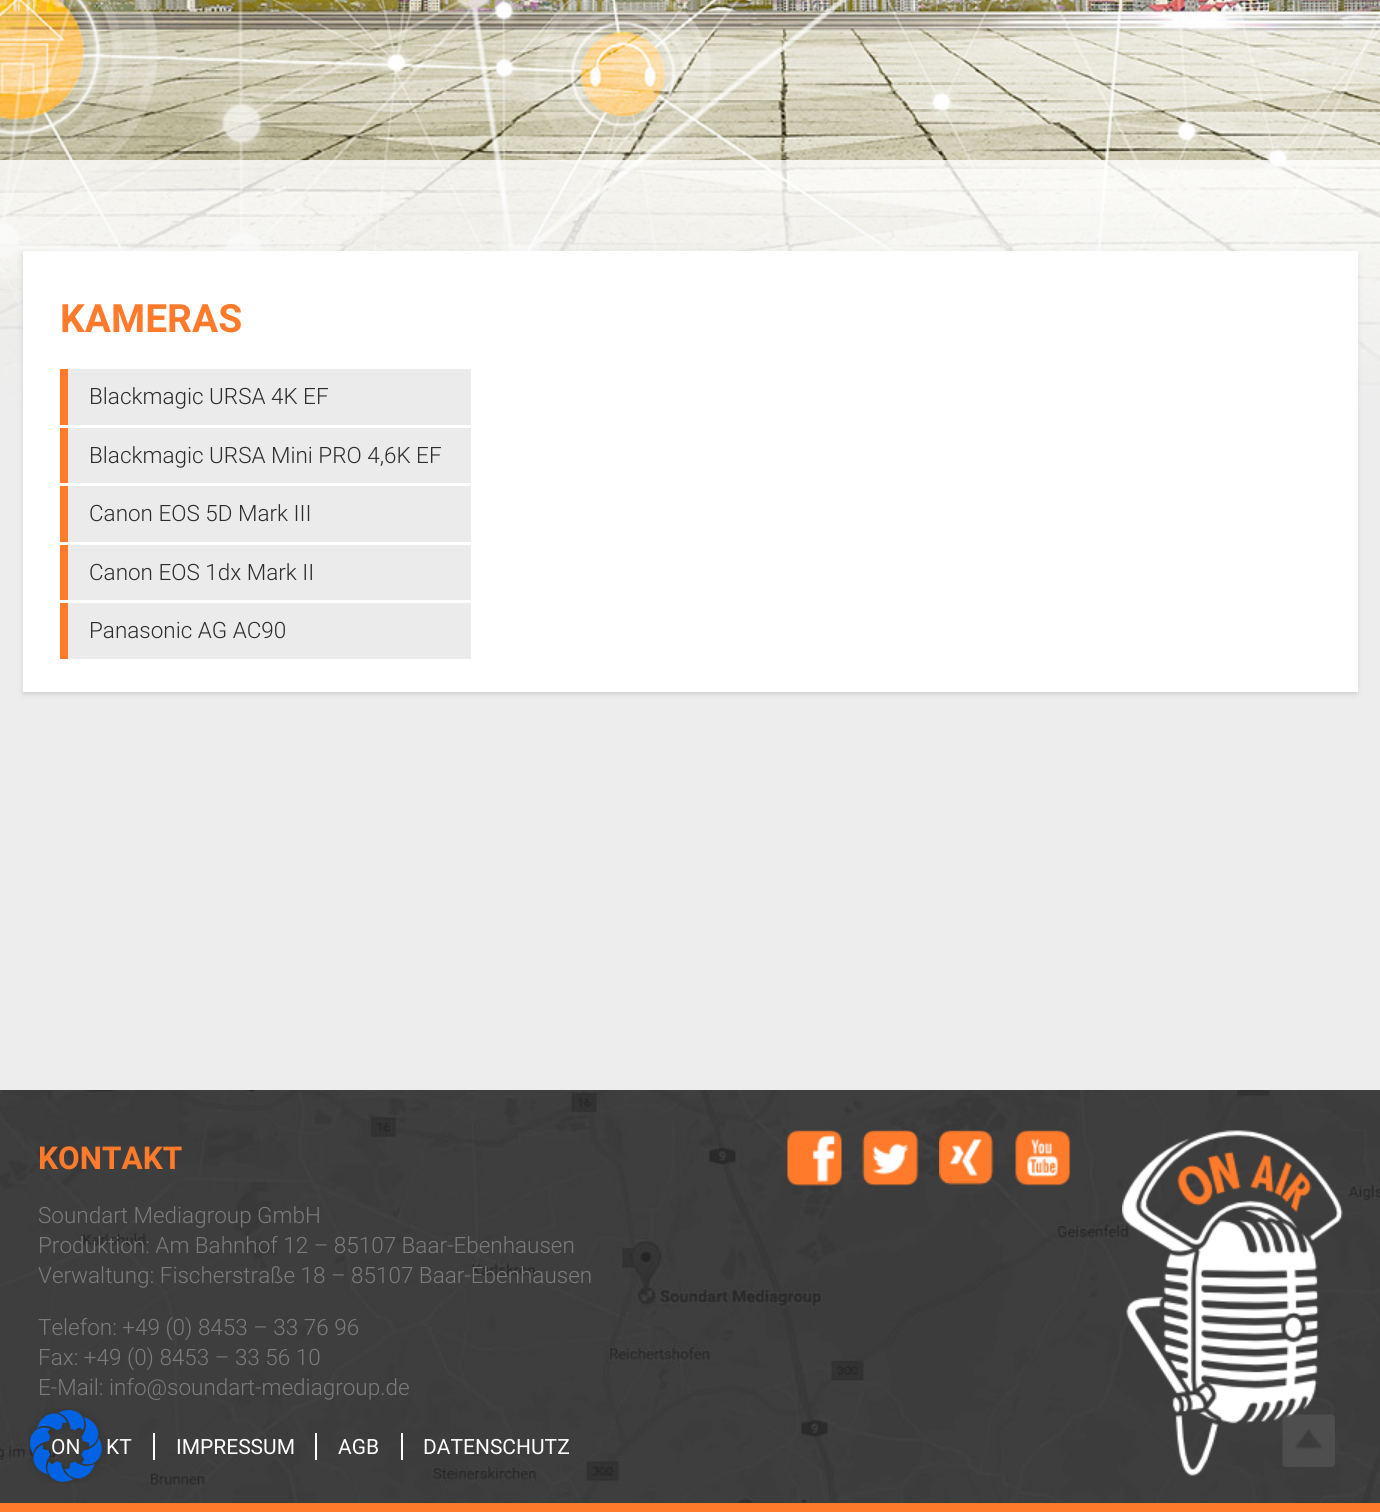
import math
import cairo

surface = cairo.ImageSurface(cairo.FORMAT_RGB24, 1380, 1512)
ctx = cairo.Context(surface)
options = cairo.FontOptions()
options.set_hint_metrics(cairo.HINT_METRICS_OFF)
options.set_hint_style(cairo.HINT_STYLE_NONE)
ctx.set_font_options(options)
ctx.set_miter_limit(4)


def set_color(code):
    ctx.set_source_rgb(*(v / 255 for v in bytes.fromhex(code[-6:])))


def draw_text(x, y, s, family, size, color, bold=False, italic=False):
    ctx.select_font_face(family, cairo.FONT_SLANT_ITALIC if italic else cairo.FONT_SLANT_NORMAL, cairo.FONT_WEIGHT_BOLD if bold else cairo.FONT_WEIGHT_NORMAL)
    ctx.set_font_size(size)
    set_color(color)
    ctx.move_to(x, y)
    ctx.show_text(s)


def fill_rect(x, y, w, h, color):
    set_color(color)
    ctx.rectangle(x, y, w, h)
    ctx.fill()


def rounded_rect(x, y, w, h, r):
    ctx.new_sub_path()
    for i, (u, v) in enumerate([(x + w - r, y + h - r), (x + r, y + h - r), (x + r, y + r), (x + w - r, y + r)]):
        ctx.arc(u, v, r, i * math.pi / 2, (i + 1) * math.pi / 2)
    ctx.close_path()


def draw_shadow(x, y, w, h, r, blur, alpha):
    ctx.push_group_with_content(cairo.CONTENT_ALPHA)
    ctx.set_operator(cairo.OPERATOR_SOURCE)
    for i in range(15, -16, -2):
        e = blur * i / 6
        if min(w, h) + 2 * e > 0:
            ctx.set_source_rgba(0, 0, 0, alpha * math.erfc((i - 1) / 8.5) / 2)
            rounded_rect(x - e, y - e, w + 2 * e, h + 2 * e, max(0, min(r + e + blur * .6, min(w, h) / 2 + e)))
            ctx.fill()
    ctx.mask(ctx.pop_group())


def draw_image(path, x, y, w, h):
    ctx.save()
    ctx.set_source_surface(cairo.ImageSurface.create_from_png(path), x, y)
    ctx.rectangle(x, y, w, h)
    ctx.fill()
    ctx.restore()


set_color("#ededed")
ctx.paint()
draw_image("assets/img1.png", 0, 0, 1380, 404)
draw_image("assets/img2.png", 0, 160, 1380, 285)
set_color("#b4b4b4")
draw_shadow(24, 255, 1332, 438, 0, 3, 0.75)
fill_rect(23, 251, 1335, 441, "#ffffff")
draw_text(60, 332, "KAMERAS", "Roboto", 39, "#ff7b2b", bold=True)
fill_rect(68, 369, 403, 56, "#ebebeb")
fill_rect(60, 369, 8, 56, "#ff7b2b")
draw_text(89, 404, "Blackmagic URSA 4K EF", "Roboto Light", 22.5, "#2c2c2c")
fill_rect(68, 428, 403, 55, "#ebebeb")
fill_rect(60, 428, 8, 55, "#ff7b2b")
draw_text(89, 463, "Blackmagic URSA Mini PRO 4,6K EF", "Roboto Light", 22.5, "#2c2c2c")
fill_rect(68, 486, 403, 56, "#ebebeb")
fill_rect(60, 486, 8, 56, "#ff7b2b")
draw_text(89, 521, "Canon EOS 5D Mark III", "Roboto Light", 22.5, "#2c2c2c")
fill_rect(68, 545, 403, 55, "#ebebeb")
fill_rect(60, 545, 8, 55, "#ff7b2b")
draw_text(89, 580, "Canon EOS 1dx Mark II", "Roboto Light", 22.5, "#2c2c2c")
fill_rect(68, 603, 403, 56, "#ebebeb")
fill_rect(60, 603, 8, 56, "#ff7b2b")
draw_text(89, 638, "Panasonic AG AC90", "Roboto Light", 22.5, "#2c2c2c")
fill_rect(0, 1502, 1380, 1, "#3e3e3e")
draw_image("assets/img3.png", 0, 1090, 1380, 413)
fill_rect(0, 1503, 1380, 9, "#ff7b2b")
draw_text(38, 1169, "KONTAKT", "Roboto", 31.5, "#ff7b2b", bold=True)
draw_text(38, 1223, "Soundart Mediagroup GmbH", "Roboto Light", 22.5, "#7b7b7b")
draw_text(38, 1253, "Produktion: Am Bahnhof 12 – 85107 Baar-Ebenhausen", "Roboto Light", 22.5, "#7b7b7b")
draw_text(38, 1283, "Verwaltung: Fischerstraße 18 – 85107 Baar-Ebenhausen", "Roboto Light", 22.5, "#7b7b7b")
draw_text(38, 1335, "Telefon: +49 (0) 8453 – 33 76 96", "Roboto Light", 22.5, "#7b7b7b")
draw_text(38, 1365, "Fax: +49 (0) 8453 – 33 56 10", "Roboto Light", 22.5, "#7b7b7b")
draw_text(38, 1395, "E-Mail: info@soundart-mediagroup.de", "Roboto Light", 22.5, "#7b7b7b")
draw_image("assets/img4.png", 787, 1130, 55, 56)
draw_image("assets/img5.png", 862, 1130, 57, 56)
draw_image("assets/img6.png", 939, 1130, 55, 55)
draw_image("assets/img7.png", 1015, 1130, 56, 56)
draw_image("assets/img8.png", 1122, 1130, 221, 346)
draw_text(51, 1454, "ON", "Roboto", 21, "#ffffff")
draw_text(106, 1454, "KT", "Roboto", 21, "#ffffff")
fill_rect(153, 1433, 2, 27, "#ffffff")
draw_text(176, 1454, "IMPRESSUM", "Roboto", 21, "#ffffff")
fill_rect(315, 1433, 2, 27, "#ffffff")
draw_text(338, 1454, "AGB", "Roboto", 21, "#ffffff")
fill_rect(401, 1433, 2, 27, "#ffffff")
draw_text(423, 1454, "DATENSCHUTZ", "Roboto", 21, "#ffffff")
draw_image("assets/img9.png", 28, 1408, 78, 75)
draw_image("assets/img10.png", 1282, 1414, 53, 53)
surface.write_to_png("output.png")
